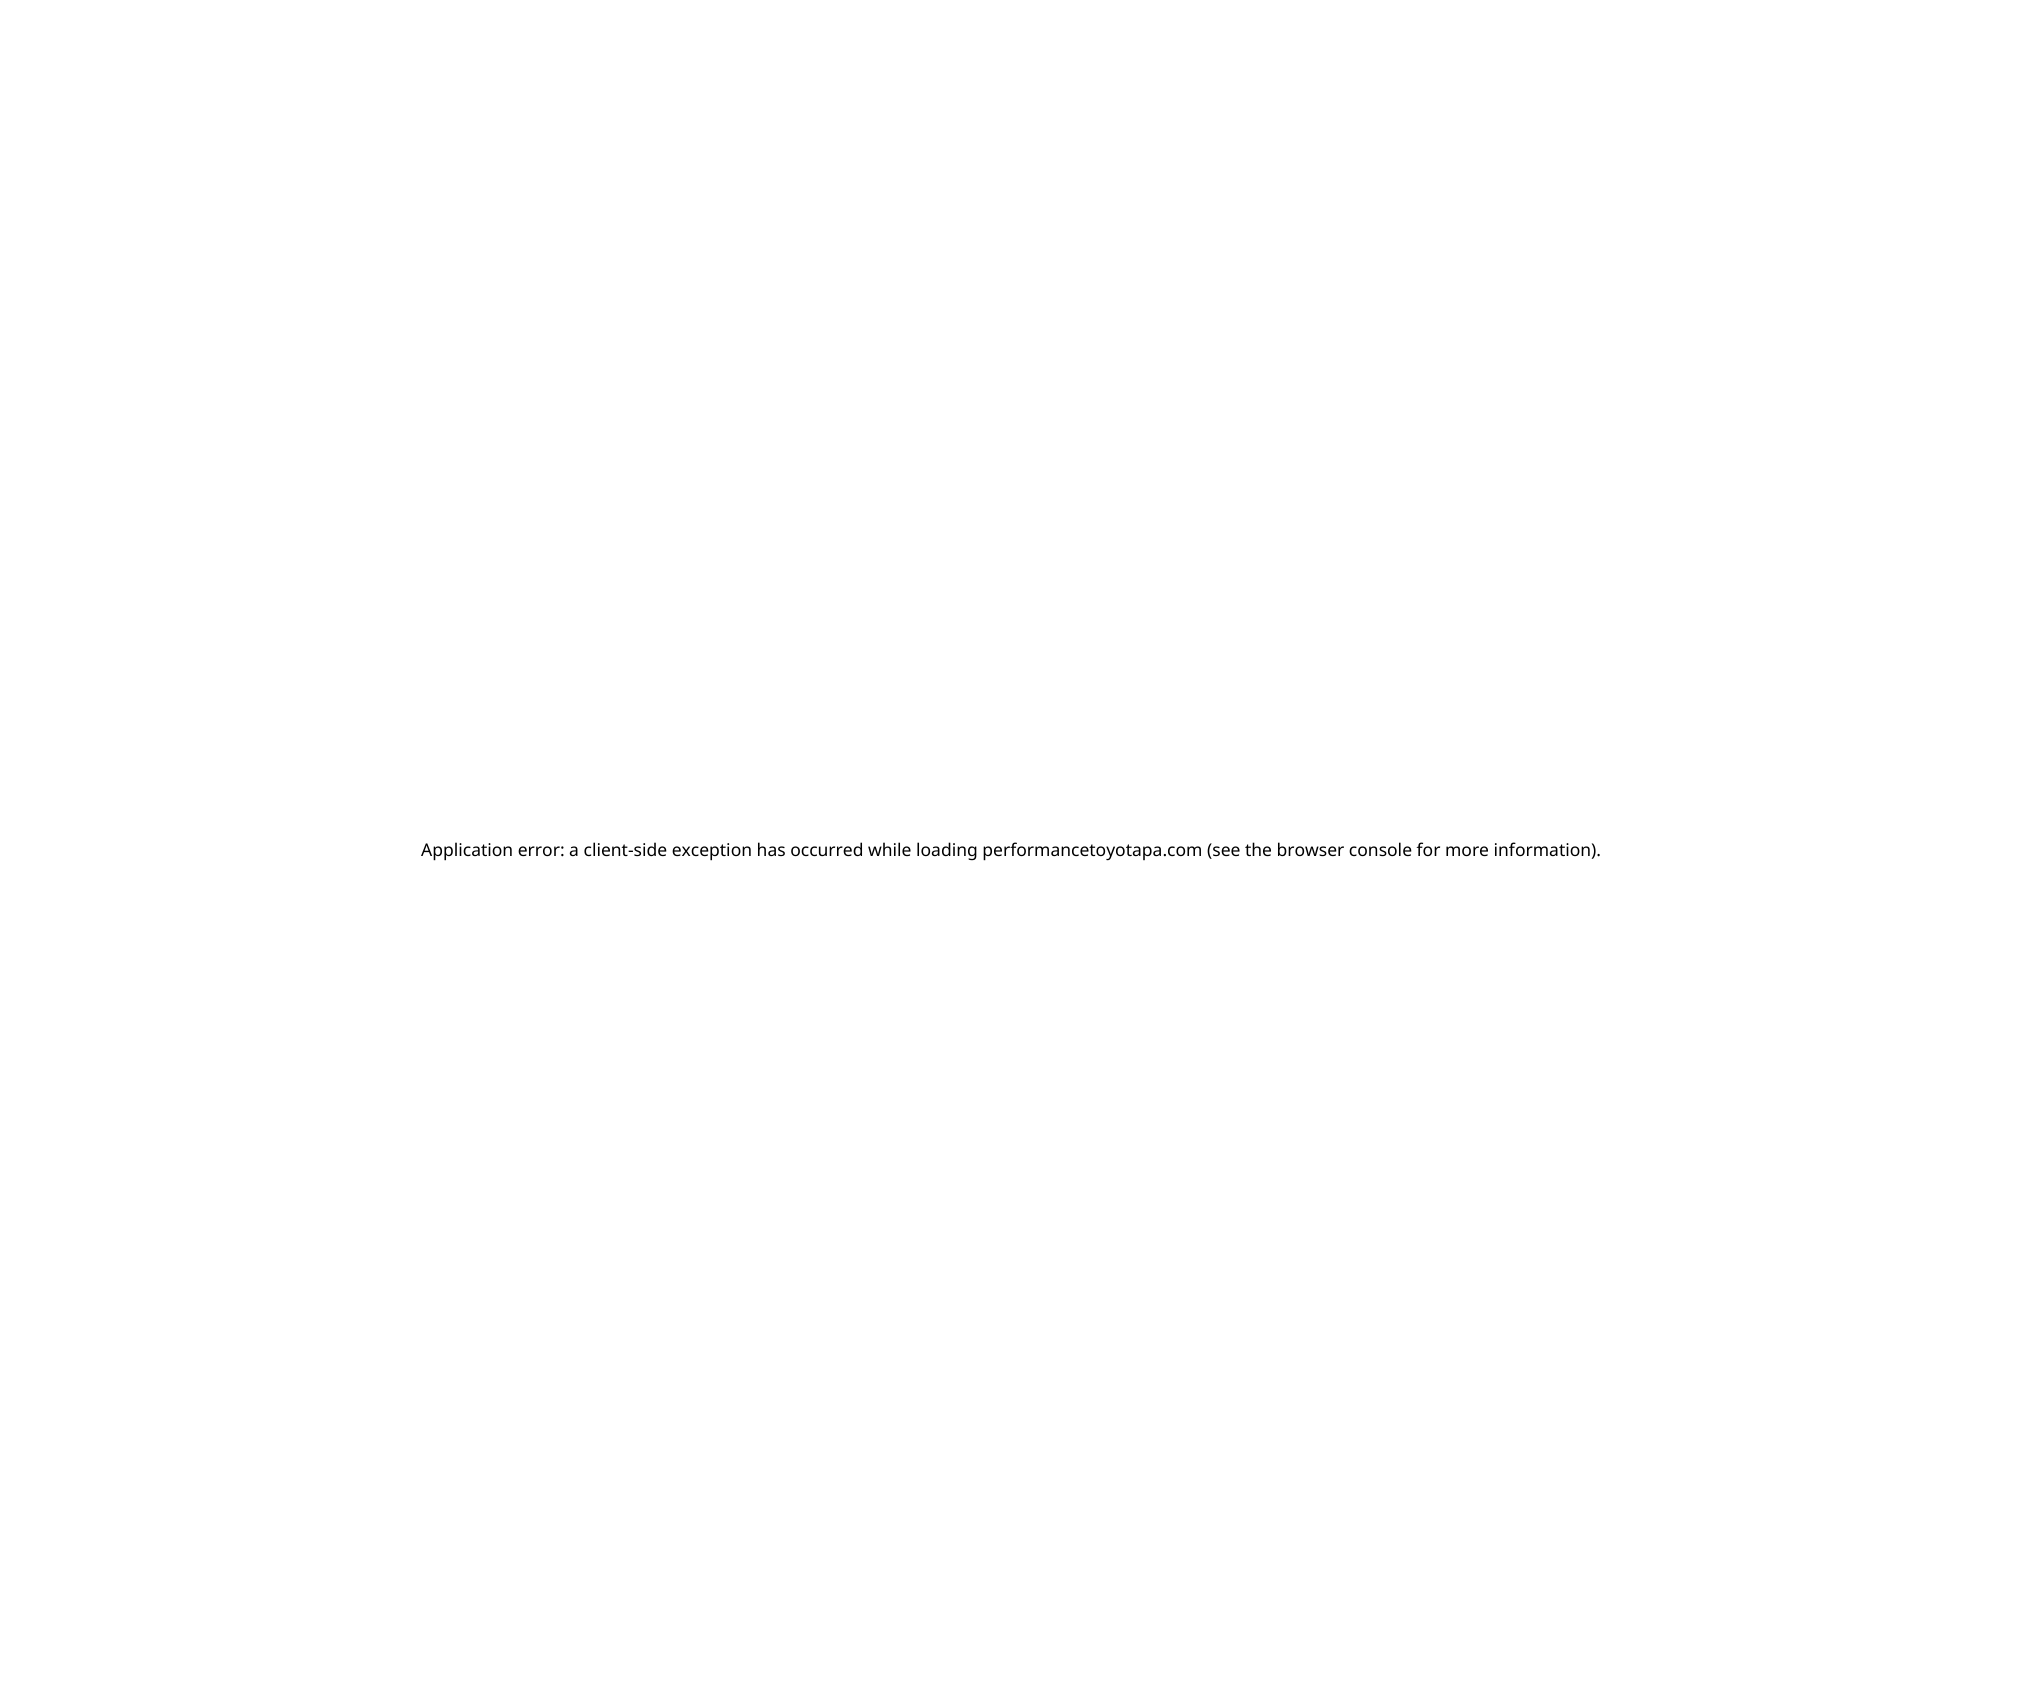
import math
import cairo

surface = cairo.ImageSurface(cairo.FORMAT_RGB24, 2022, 1698)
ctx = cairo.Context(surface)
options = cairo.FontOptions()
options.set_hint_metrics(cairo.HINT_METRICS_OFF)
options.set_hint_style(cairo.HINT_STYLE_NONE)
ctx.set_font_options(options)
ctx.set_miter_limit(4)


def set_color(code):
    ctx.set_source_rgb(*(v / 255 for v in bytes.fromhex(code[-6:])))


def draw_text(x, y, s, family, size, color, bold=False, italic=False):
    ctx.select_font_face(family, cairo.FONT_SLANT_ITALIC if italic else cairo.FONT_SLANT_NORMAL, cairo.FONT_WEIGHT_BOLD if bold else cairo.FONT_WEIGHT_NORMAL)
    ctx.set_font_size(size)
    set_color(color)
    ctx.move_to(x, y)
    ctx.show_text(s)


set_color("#ffffff")
ctx.paint()
draw_text(421, 856, "Application error: a client-side exception has occurred while loading performancetoyotapa.com (see the browser console for more information).", "Noto Sans", 17.5, "#000000")
surface.write_to_png("output.png")
